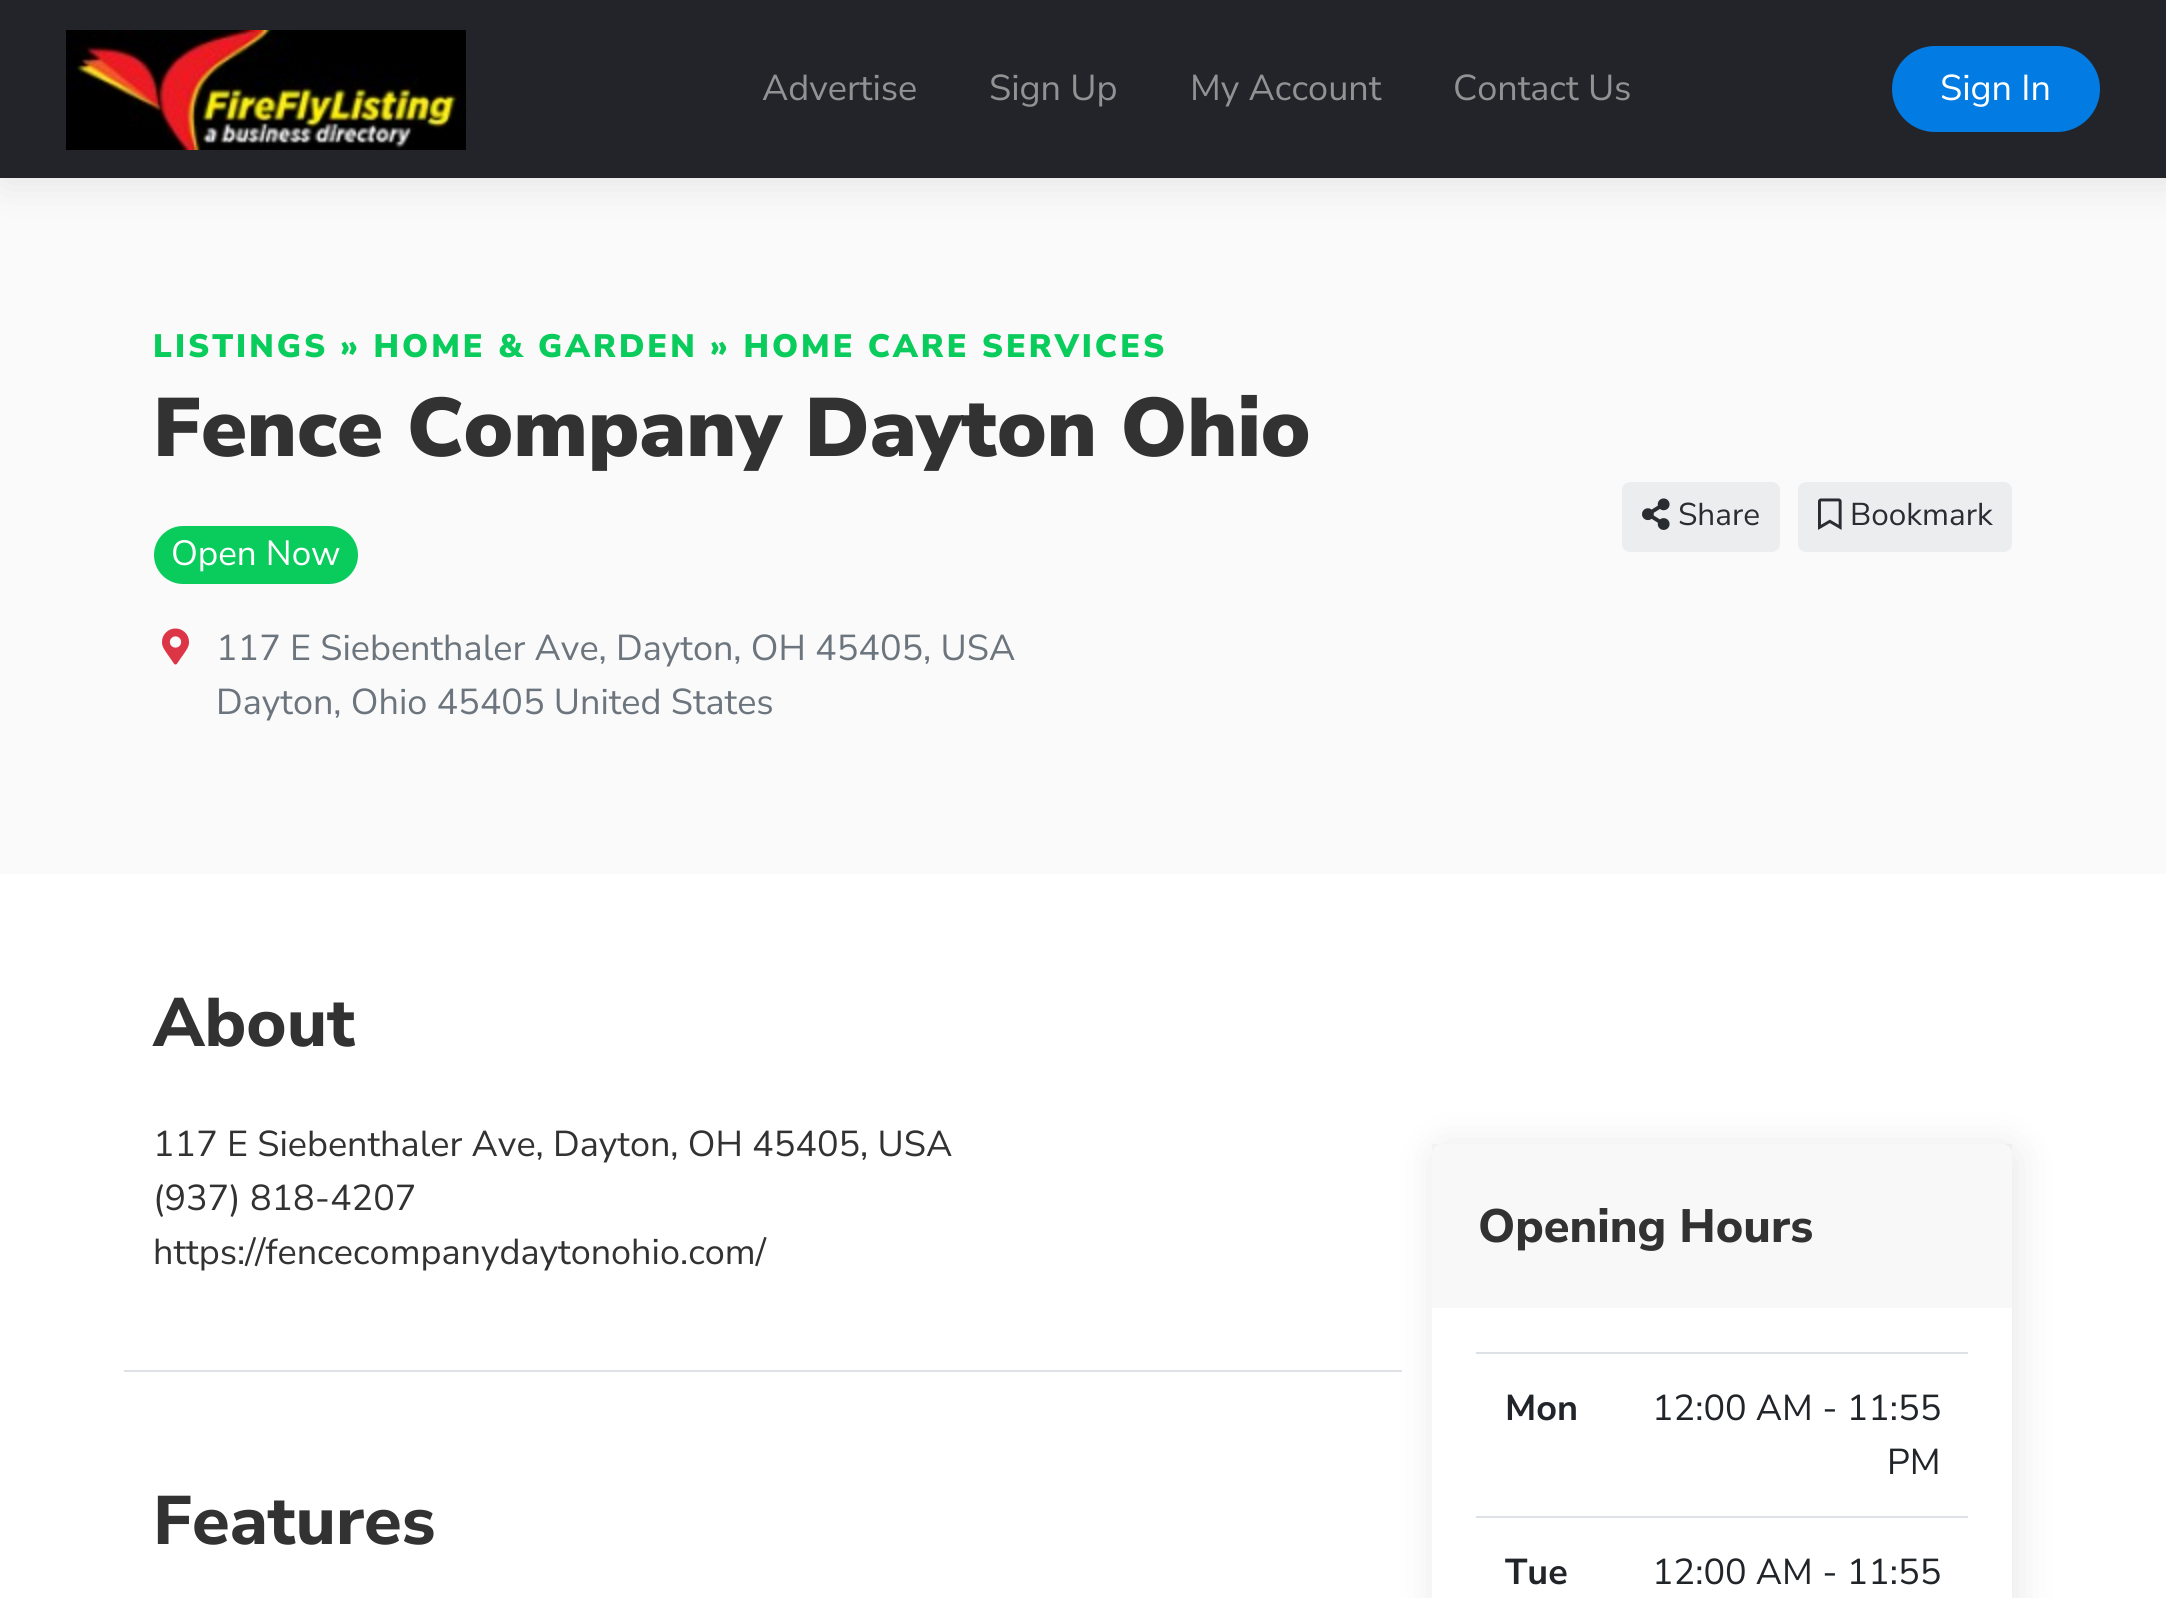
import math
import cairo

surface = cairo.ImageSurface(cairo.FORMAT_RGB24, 2166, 1598)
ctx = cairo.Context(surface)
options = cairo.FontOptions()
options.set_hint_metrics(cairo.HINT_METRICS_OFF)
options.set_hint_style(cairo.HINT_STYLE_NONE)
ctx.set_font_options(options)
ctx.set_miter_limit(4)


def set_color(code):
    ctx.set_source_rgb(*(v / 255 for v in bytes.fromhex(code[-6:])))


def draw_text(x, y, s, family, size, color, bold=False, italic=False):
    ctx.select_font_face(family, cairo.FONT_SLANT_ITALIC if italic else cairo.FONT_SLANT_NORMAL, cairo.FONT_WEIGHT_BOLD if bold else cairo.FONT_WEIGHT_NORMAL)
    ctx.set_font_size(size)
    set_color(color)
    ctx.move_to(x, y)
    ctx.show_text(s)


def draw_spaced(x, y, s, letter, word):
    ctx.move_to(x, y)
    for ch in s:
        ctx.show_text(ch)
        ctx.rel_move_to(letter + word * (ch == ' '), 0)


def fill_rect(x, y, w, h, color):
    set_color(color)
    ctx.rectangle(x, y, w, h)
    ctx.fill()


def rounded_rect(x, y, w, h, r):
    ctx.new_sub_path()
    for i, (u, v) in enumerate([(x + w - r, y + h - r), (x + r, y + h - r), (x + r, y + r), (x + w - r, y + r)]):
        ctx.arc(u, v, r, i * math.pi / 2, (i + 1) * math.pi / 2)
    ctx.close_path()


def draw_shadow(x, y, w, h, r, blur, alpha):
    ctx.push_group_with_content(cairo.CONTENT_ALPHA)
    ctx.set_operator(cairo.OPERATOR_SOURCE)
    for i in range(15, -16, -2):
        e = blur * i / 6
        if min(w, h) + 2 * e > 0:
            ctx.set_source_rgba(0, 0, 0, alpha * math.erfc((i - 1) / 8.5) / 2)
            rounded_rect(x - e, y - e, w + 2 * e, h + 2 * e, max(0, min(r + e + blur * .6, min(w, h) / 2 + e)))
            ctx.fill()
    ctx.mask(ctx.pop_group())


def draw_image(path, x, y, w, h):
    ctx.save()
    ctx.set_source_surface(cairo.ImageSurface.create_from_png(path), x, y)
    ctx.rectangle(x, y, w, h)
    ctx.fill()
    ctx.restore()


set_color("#ffffff")
ctx.paint()
fill_rect(0, 178, 2166, 696, "#fafafa")
set_color("#000000")
draw_shadow(4, 4, 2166, 178, 0, 20, 0.1)
fill_rect(0, 0, 2166, 178, "#232429")
draw_image("assets/img1.png", 66, 30, 400, 120)
draw_text(762, 100, "Advertise", "Nunito Sans", 36, "#919294")
draw_text(989, 100, "Sign Up", "Nunito Sans", 36, "#919294")
draw_text(1190, 100, "My Account", "Nunito Sans", 36, "#919294")
draw_text(1453, 100, "Contact Us", "Nunito Sans", 36, "#919294")
set_color("#027be3")
rounded_rect(1893, 47, 206, 84, 42)
ctx.fill_preserve()
ctx.stroke()
draw_text(1940, 100, "Sign In", "Nunito Sans", 36, "#ffffff")
ctx.select_font_face("Nunito Sans Black")
ctx.set_font_size(32.4)
set_color("#0acc5c")
draw_spaced(153, 357, "LISTINGS » HOME & GARDEN » HOME CARE SERVICES", 3, 0)
draw_text(153, 456, "Fence Company Dayton Ohio", "Nunito Sans Black", 82.75, "#323232")
set_color("#0acc5c")
rounded_rect(154, 526, 204, 58, 29)
ctx.fill()
draw_text(171, 565, "Open Now", "Nunito Sans", 35, "#ffffff")
draw_image("assets/img2.png", 162, 628, 27, 37)
draw_text(216, 660, "117 E Siebenthaler Ave, Dayton, OH 45405, USA", "Nunito Sans", 36, "#6c757d")
draw_text(216, 714, "Dayton, Ohio 45405 United States", "Nunito Sans", 36, "#6c757d")
set_color("#ebedef")
rounded_rect(1623, 483, 156, 68, 7)
ctx.fill_preserve()
ctx.stroke()
draw_image("assets/img3.png", 1642, 498, 28, 32)
draw_text(1678, 525, "Share", "Nunito Sans", 31.5, "#292d32")
set_color("#ebedef")
rounded_rect(1799, 483, 212, 68, 7)
ctx.fill_preserve()
ctx.stroke()
draw_image("assets/img4.png", 1818, 498, 24, 32)
draw_text(1850, 525, "Bookmark", "Nunito Sans", 31.5, "#292d32")
fill_rect(124, 1370, 1278, 2, "#dee2e6")
draw_text(153, 1046, "About", "Nunito Sans ExtraBold", 68.5, "#323232")
draw_text(153, 1156, "117 E Siebenthaler Ave, Dayton, OH 45405, USA", "Nunito Sans", 36, "#323232")
draw_text(153, 1210, "(937) 818-4207", "Nunito Sans", 36, "#323232")
draw_text(153, 1264, "https://fencecompanydaytonohio.com/", "Nunito Sans", 36, "#323232")
draw_text(153, 1544, "Features", "Nunito Sans ExtraBold", 68.5, "#323232")
ctx.save()
ctx.set_fill_rule(cairo.FILL_RULE_EVEN_ODD)
ctx.new_path()
ctx.move_to(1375, 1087)
ctx.line_to(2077, 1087)
ctx.line_to(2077, 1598)
ctx.line_to(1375, 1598)
ctx.close_path()
ctx.move_to(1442, 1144)
ctx.line_to(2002, 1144)
ctx.curve_to(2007.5, 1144, 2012, 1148.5, 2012, 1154)
ctx.line_to(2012, 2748)
ctx.curve_to(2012, 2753.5, 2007.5, 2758, 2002, 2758)
ctx.line_to(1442, 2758)
ctx.curve_to(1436.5, 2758, 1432, 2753.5, 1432, 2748)
ctx.line_to(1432, 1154)
ctx.curve_to(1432, 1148.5, 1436.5, 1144, 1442, 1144)
ctx.close_path()
ctx.clip()
set_color("#000000")
draw_shadow(1436, 1148, 580, 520, 10, 20, 0.1)
ctx.restore()
ctx.set_source_rgba(0, 0, 0, 0.03)
ctx.rectangle(1432, 1144, 580, 164)
ctx.fill()
draw_text(1478, 1242, "Opening Hours", "Nunito Sans ExtraBold", 46.75, "#323232")
draw_text(1505, 1420, "Mon", "Nunito Sans", 36, "#212529", bold=True)
fill_rect(1476, 1352, 492, 2, "#dee2e6")
draw_text(1652, 1420, "12:00 AM - 11:55", "Nunito Sans", 36, "#212529")
draw_text(1887, 1474, "PM", "Nunito Sans", 36, "#212529")
draw_text(1505, 1584, "Tue", "Nunito Sans", 36, "#212529", bold=True)
fill_rect(1476, 1516, 492, 2, "#dee2e6")
draw_text(1652, 1584, "12:00 AM - 11:55", "Nunito Sans", 36, "#212529")
surface.write_to_png("output.png")
